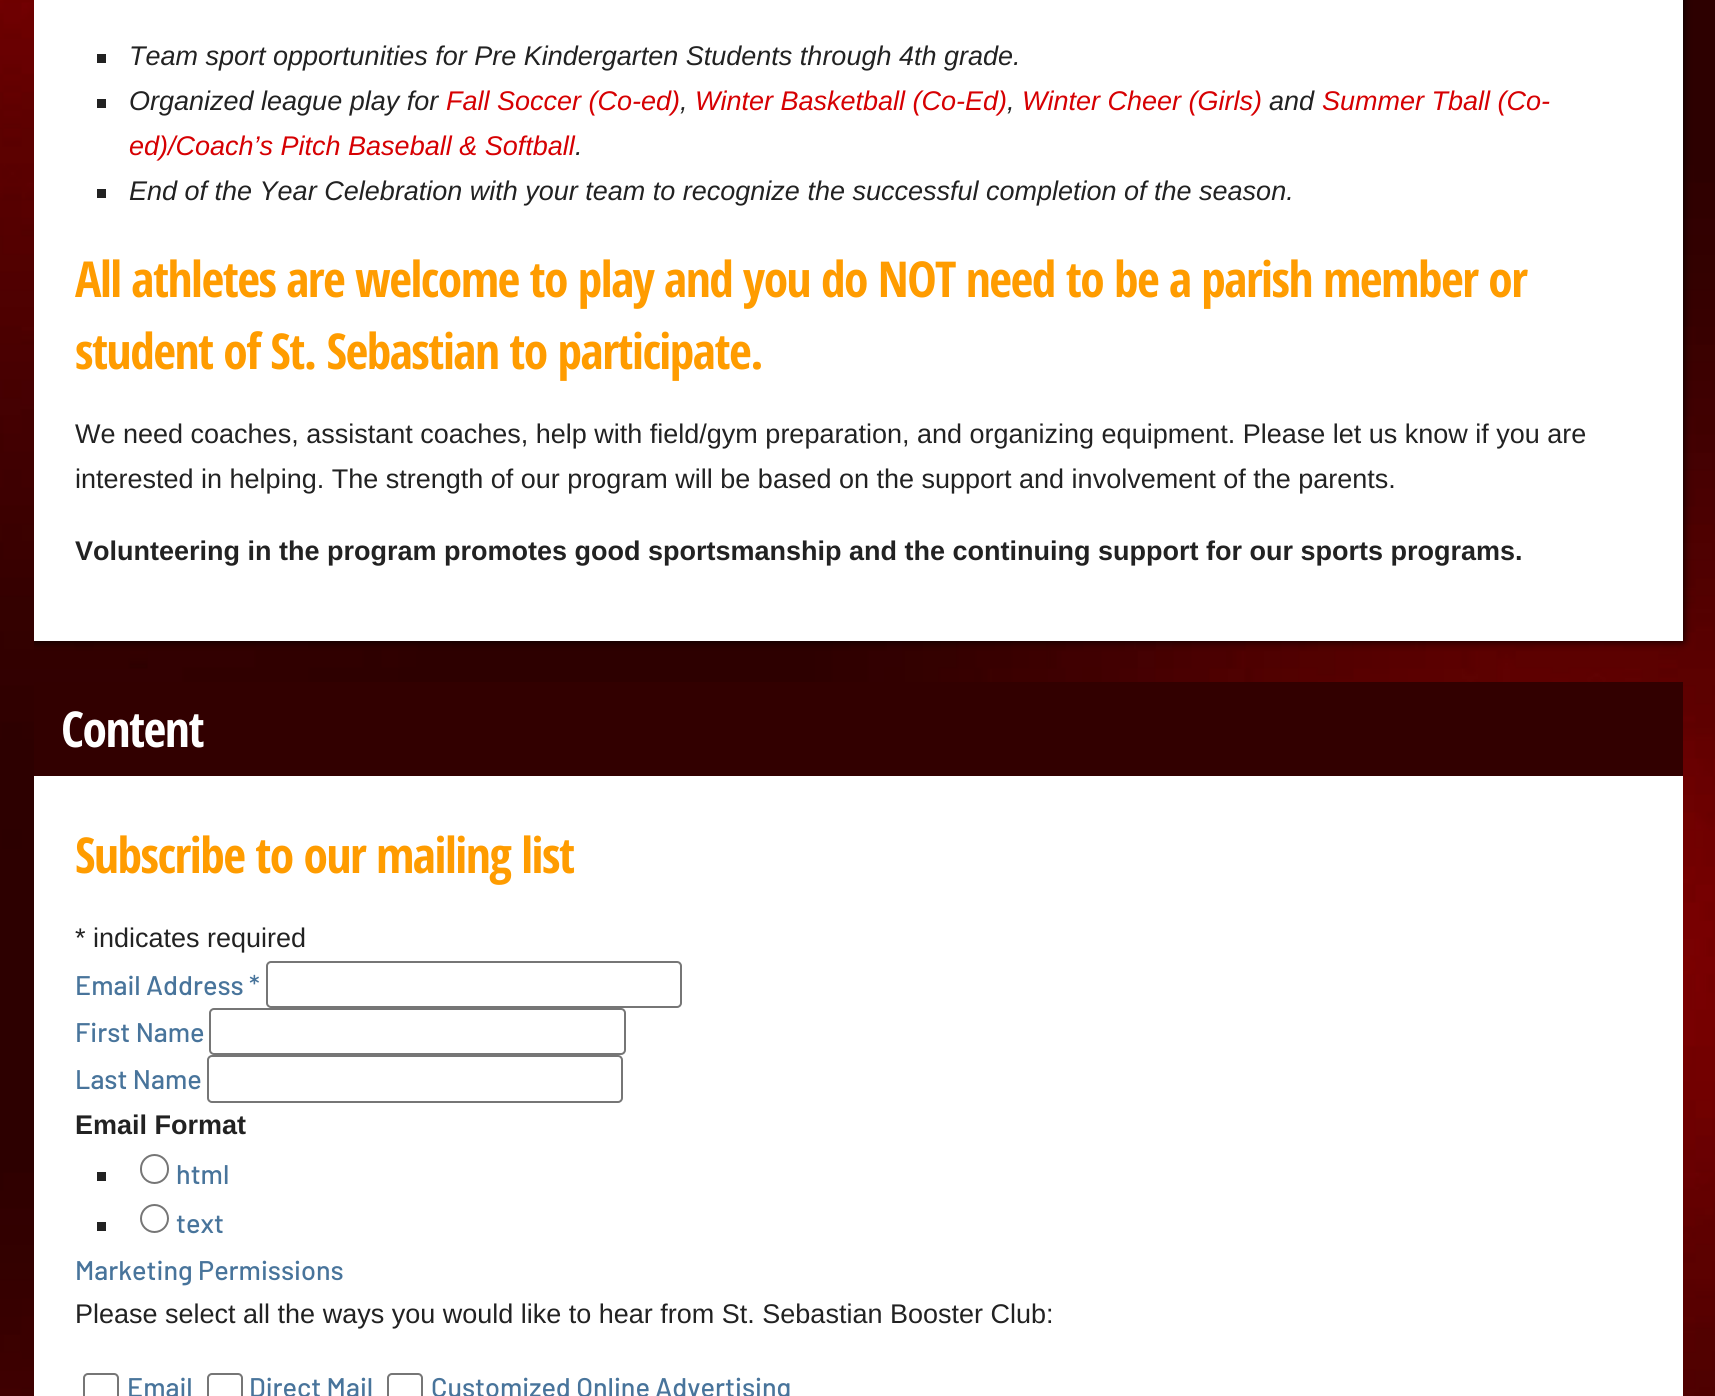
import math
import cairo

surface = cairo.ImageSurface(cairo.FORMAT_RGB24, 1715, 1396)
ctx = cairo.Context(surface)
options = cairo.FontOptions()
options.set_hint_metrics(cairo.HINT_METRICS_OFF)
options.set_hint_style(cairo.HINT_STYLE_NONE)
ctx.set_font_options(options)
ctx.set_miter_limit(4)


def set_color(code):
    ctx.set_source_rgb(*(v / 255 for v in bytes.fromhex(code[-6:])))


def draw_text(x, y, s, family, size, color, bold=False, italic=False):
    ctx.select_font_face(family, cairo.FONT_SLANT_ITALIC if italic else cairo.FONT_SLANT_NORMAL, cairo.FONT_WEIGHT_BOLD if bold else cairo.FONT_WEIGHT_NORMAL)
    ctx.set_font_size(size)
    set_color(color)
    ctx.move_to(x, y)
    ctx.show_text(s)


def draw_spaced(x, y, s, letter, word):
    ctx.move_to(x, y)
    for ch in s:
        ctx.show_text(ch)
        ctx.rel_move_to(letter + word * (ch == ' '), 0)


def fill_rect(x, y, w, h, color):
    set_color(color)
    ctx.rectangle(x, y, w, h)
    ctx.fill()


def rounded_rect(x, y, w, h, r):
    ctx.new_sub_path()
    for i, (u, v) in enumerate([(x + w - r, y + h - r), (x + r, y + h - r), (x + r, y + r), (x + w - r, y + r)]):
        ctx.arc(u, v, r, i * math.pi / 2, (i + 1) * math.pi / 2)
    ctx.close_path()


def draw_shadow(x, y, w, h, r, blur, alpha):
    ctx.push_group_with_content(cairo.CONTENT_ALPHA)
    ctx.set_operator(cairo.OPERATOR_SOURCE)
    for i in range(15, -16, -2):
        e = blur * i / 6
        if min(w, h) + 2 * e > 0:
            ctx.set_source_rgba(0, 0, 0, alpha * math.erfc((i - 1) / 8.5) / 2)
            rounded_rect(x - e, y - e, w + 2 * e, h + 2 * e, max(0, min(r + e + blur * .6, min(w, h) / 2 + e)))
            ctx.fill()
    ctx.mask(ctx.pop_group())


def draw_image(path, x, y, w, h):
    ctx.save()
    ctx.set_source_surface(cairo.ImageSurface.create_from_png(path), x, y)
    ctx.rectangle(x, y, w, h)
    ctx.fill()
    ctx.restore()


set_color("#ffffff")
ctx.paint()
draw_image("assets/img1.png", 0, 0, 1715, 1396)
ctx.save()
ctx.rectangle(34, 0, 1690, 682)
ctx.clip()
set_color("#000000")
draw_shadow(34, -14, 1649, 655, 0, 4.5, 1)
ctx.restore()
fill_rect(34, 0, 1649, 641, "#ffffff")
fill_rect(97, 54, 9, 9, "#222222")
draw_text(129, 65, "Team sport opportunities for Pre Kindergarten Students through 4th grade.", "Liberation Sans", 27, "#222222", italic=True)
fill_rect(97, 99, 9, 9, "#222222")
draw_text(129, 110, "Organized league play for", "Liberation Sans", 27, "#222222", italic=True)
draw_text(446, 110, "Fall Soccer (Co-ed)", "Liberation Sans", 27, "#d60002", italic=True)
draw_text(695, 110, "Winter Basketball (Co-Ed)", "Liberation Sans", 27, "#d60002", italic=True)
draw_text(1022, 110, "Winter Cheer (Girls)", "Liberation Sans", 27, "#d60002", italic=True)
draw_text(1269, 110, "and", "Liberation Sans", 27, "#222222", italic=True)
draw_text(1322, 110, "Summer Tball (Co-", "Liberation Sans", 27, "#d60002", italic=True)
draw_text(680, 110, ",", "Liberation Sans", 27, "#222222", italic=True)
draw_text(1007, 110, ",", "Liberation Sans", 27, "#222222", italic=True)
draw_text(129, 155, "ed)/Coach’s Pitch Baseball & Softball", "Liberation Sans", 27, "#d60002", italic=True)
draw_text(575, 155, ".", "Liberation Sans", 27, "#222222", italic=True)
fill_rect(97, 189, 9, 9, "#222222")
draw_text(129, 200, "End of the Year Celebration with your team to recognize the successful completion of the season.", "Liberation Sans", 27, "#222222", italic=True)
ctx.select_font_face("Open Sans Condensed", cairo.FONT_SLANT_NORMAL, cairo.FONT_WEIGHT_BOLD)
ctx.set_font_size(49.5)
set_color("#ff9c00")
draw_spaced(75, 297, "All athletes are welcome to play and you do NOT need to be a parish member or", -1.5, 0)
draw_spaced(75, 369, "student of St. Sebastian to participate.", -1.5, 0)
draw_text(75, 443, "We need coaches, assistant coaches, help with field/gym preparation, and organizing equipment. Please let us know if you are", "Liberation Sans", 27, "#222222")
draw_text(75, 488, "interested in helping. The strength of our program will be based on the support and involvement of the parents.", "Liberation Sans", 27, "#222222")
draw_text(75, 560, "Volunteering in the program promotes good sportsmanship and the continuing support for our sports programs.", "Liberation Sans", 27, "#222222", bold=True)
fill_rect(34, 776, 1649, 620, "#ffffff")
fill_rect(34, 682, 1649, 94, "#320000")
ctx.select_font_face("Open Sans Condensed", cairo.FONT_SLANT_NORMAL, cairo.FONT_WEIGHT_BOLD)
ctx.set_font_size(49.5)
set_color("#ffffff")
draw_spaced(61, 747, "Content", -1.5, 0)
set_color("#ff9c00")
draw_spaced(75, 873, "Subscribe to our mailing list", -1.5, 0)
draw_text(75, 947, "* indicates required", "Liberation Sans", 27, "#222222")
draw_text(75, 995, "Email Address *", "Barlow Medium", 27, "#48749b")
rounded_rect(267, 962, 414, 45, 4)
set_color("#767676")
ctx.stroke()
draw_text(75, 1042, "First Name", "Barlow Medium", 27, "#48749b")
rounded_rect(210, 1009, 415, 45, 4)
set_color("#767676")
ctx.stroke()
draw_text(75, 1089, "Last Name", "Barlow Medium", 27, "#48749b")
rounded_rect(208, 1056, 414, 46, 4)
set_color("#767676")
ctx.stroke()
draw_text(75, 1134, "Email Format", "Liberation Sans", 27, "#222222", bold=True)
fill_rect(97, 1172, 9, 9, "#222222")
rounded_rect(141, 1155, 27, 28, 13.5)
set_color("#767676")
ctx.stroke()
draw_text(176, 1184, "html", "Barlow Medium", 27, "#48749b")
fill_rect(97, 1222, 9, 9, "#222222")
ctx.new_path()
ctx.arc(154.5, 1218.5, 13.5, 0, 2 * math.pi)
set_color("#767676")
ctx.stroke()
draw_text(176, 1233, "text", "Barlow Medium", 27, "#48749b")
draw_text(75, 1280, "Marketing Permissions", "Barlow Medium", 27, "#48749b")
draw_text(75, 1323, "Please select all the ways you would like to hear from St. Sebastian Booster Club:", "Liberation Sans", 27, "#222222")
rounded_rect(84, 1374, 34, 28, 4)
set_color("#767676")
ctx.stroke()
draw_text(127, 1397, "Email", "Barlow Medium", 27, "#48749b")
rounded_rect(208, 1374, 34, 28, 4)
set_color("#767676")
ctx.stroke()
draw_text(249, 1397, "Direct Mail", "Barlow Medium", 27, "#48749b")
rounded_rect(388, 1374, 34, 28, 4)
set_color("#767676")
ctx.stroke()
draw_text(431, 1397, "Customized Online Advertising", "Barlow Medium", 27, "#48749b")
surface.write_to_png("output.png")
